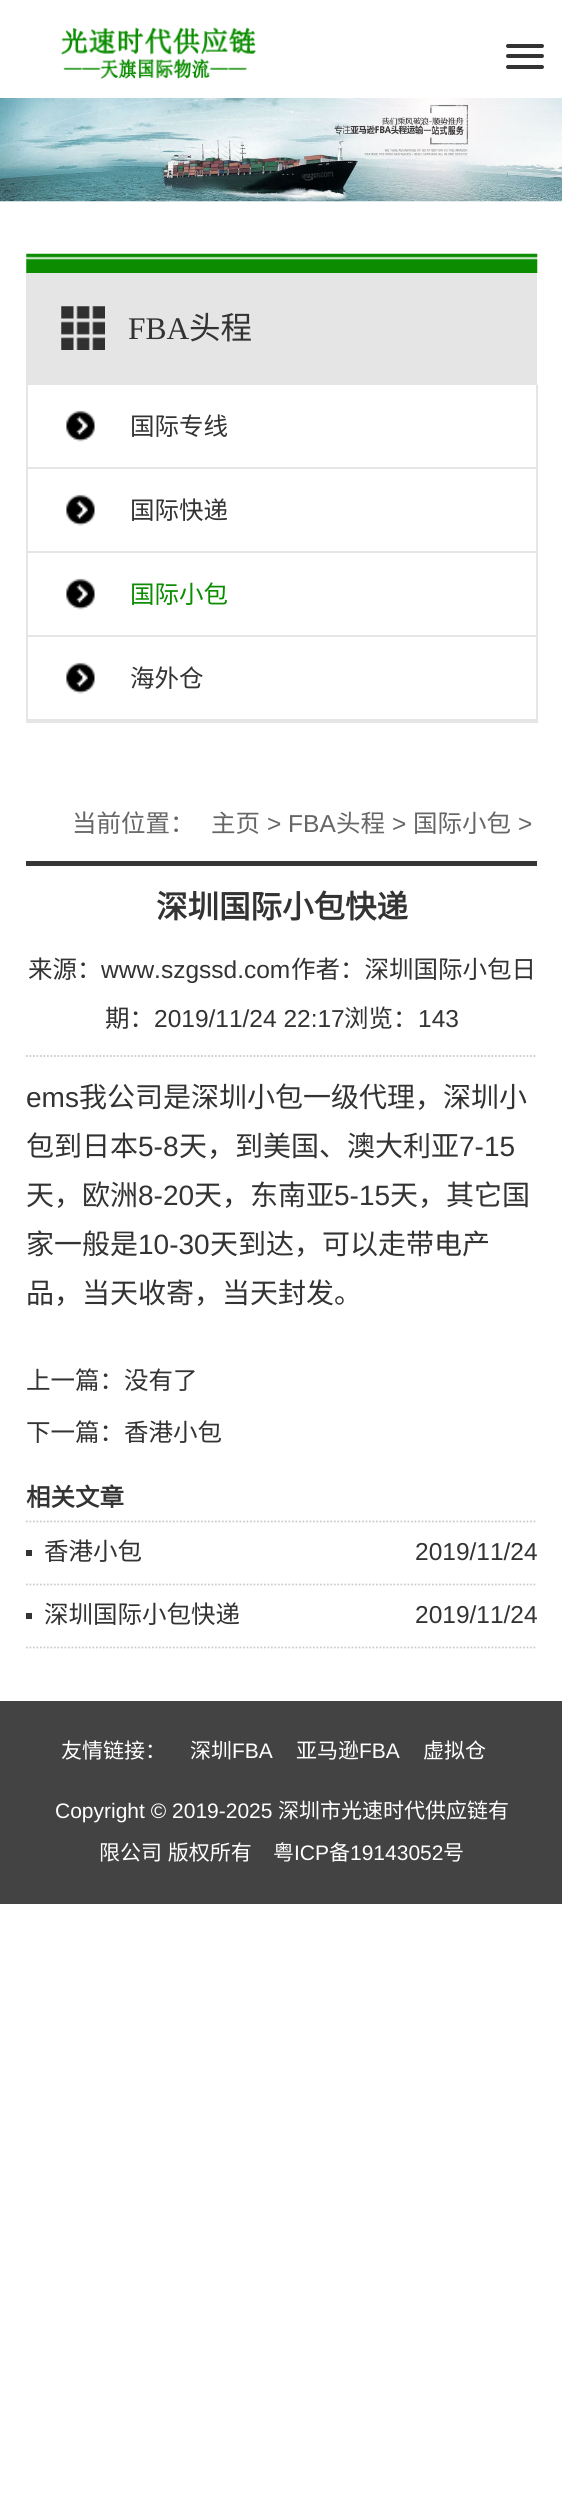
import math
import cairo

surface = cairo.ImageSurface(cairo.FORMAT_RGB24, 562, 2501)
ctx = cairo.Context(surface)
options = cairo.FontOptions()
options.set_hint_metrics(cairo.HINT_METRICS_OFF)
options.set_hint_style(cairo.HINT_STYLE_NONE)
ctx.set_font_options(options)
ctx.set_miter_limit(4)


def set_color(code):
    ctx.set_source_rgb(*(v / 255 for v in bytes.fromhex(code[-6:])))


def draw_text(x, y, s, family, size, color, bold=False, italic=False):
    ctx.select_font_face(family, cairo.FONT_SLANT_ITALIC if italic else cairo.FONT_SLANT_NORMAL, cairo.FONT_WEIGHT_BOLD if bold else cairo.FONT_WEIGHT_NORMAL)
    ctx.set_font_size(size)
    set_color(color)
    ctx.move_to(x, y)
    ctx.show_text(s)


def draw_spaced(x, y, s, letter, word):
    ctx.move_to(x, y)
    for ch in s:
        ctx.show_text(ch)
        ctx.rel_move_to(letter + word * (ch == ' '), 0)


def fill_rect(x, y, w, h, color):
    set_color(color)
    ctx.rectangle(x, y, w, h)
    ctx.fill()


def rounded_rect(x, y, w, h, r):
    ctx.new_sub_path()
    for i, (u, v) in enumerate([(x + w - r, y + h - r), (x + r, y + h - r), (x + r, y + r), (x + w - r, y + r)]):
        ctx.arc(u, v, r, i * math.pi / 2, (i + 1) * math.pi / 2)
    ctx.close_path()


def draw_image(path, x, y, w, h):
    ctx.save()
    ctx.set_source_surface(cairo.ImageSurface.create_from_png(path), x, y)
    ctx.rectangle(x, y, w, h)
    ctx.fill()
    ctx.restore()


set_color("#ffffff")
ctx.paint()
draw_image("assets/img1.png", 60, 27, 196, 52)
set_color("#333333")
rounded_rect(506, 44, 38, 4, 2)
ctx.fill()
rounded_rect(506, 54, 38, 4, 2)
ctx.fill()
rounded_rect(506, 65, 38, 4, 2)
ctx.fill()
draw_image("assets/img2.png", 0, 98, 562, 104)
draw_image("assets/img3.png", 26, 253, 512, 20)
fill_rect(26, 273, 511, 112, "#e5e5e5")
draw_image("assets/img4.png", 61, 306, 44, 44)
draw_text(128, 339, "FBA", "Liberation Serif", 31.5, "#333333")
draw_text(189, 339, "头程", "Noto Sans CJK SC", 31.5, "#333333")
fill_rect(536, 385, 2, 338, "#e5e5e5")
fill_rect(26, 721, 511, 2, "#e5e5e5")
fill_rect(26, 385, 2, 338, "#e5e5e5")
fill_rect(28, 467, 508, 2, "#e5e5e5")
draw_image("assets/img5.png", 66, 410, 29, 32)
draw_text(130, 435, "国际专线", "Noto Sans CJK SC", 24.5, "#333333")
fill_rect(28, 551, 508, 2, "#e5e5e5")
draw_image("assets/img5.png", 66, 494, 29, 32)
draw_text(130, 519, "国际快递", "Noto Sans CJK SC", 24.5, "#333333")
fill_rect(28, 635, 508, 2, "#e5e5e5")
draw_image("assets/img5.png", 66, 578, 29, 32)
draw_text(130, 603, "国际小包", "Noto Sans CJK SC", 24.5, "#0b8c01")
fill_rect(28, 719, 508, 2, "#e5e5e5")
draw_image("assets/img5.png", 66, 662, 29, 32)
draw_text(130, 687, "海外仓", "Noto Sans CJK SC", 24.5, "#333333")
fill_rect(26, 861, 511, 5, "#363636")
draw_text(72, 832, "当前位置：", "Noto Sans CJK SC", 24.5, "#666666")
draw_text(211, 832, "主页", "Noto Sans CJK SC", 24.5, "#666666")
draw_text(267, 832, "> FBA", "Liberation Sans", 24.5, "#666666")
draw_text(336, 832, "头程", "Noto Sans CJK SC", 24.5, "#666666")
draw_text(392, 832, ">", "Liberation Sans", 24.5, "#666666")
draw_text(413, 832, "国际小包", "Noto Sans CJK SC", 24.5, "#666666")
draw_text(518, 832, ">", "Liberation Sans", 24.5, "#666666")
draw_text(156, 918, "深圳国际小包快递", "Noto Sans CJK SC", 31.5, "#333333", bold=True)
ctx.new_path()
ctx.move_to(26, 1056)
ctx.line_to(537, 1056)
set_color("#cccccc")
ctx.set_line_width(1.8)
ctx.set_dash([1.75, 1.75])
ctx.stroke()
draw_text(28, 978, "来源：", "Noto Sans CJK SC", 24.5, "#333333")
draw_text(101, 978, "www.szgssd.com", "Liberation Sans", 24.5, "#333333")
draw_text(291, 978, "作者：深圳国际小包日", "Noto Sans CJK SC", 24.5, "#333333")
draw_text(105, 1027, "期：", "Noto Sans CJK SC", 24.5, "#333333")
draw_text(154, 1027, "2019/11/24 22:17", "Liberation Sans", 24.5, "#333333")
draw_text(344, 1027, "浏览：", "Noto Sans CJK SC", 24.5, "#333333")
draw_text(418, 1027, "143", "Liberation Sans", 24.5, "#333333")
draw_text(26, 1107, "ems", "Liberation Sans", 28, "#333333")
draw_text(79, 1107, "我公司是深圳小包一级代理，深圳小", "Noto Sans CJK SC", 28, "#333333")
draw_text(26, 1156, "包到日本", "Noto Sans CJK SC", 28, "#333333")
draw_text(138, 1156, "5-8", "Liberation Sans", 28, "#333333")
draw_text(179, 1156, "天，到美国、澳大利亚", "Noto Sans CJK SC", 28, "#333333")
draw_text(459, 1156, "7-15", "Liberation Sans", 28, "#333333")
draw_text(26, 1205, "天，欧洲", "Noto Sans CJK SC", 28, "#333333")
draw_text(138, 1205, "8-20", "Liberation Sans", 28, "#333333")
draw_text(194, 1205, "天，东南亚", "Noto Sans CJK SC", 28, "#333333")
draw_text(334, 1205, "5-15", "Liberation Sans", 28, "#333333")
draw_text(390, 1205, "天，其它国", "Noto Sans CJK SC", 28, "#333333")
draw_text(26, 1254, "家一般是", "Noto Sans CJK SC", 28, "#333333")
draw_text(138, 1254, "10-30", "Liberation Sans", 28, "#333333")
draw_text(210, 1254, "天到达，可以走带电产", "Noto Sans CJK SC", 28, "#333333")
draw_text(26, 1303, "品，当天收寄，当天封发。", "Noto Sans CJK SC", 28, "#333333")
draw_text(26, 1389, "上一篇：没有了", "Noto Sans CJK SC", 24.5, "#333333")
draw_text(26, 1441, "下一篇：香港小包", "Noto Sans CJK SC", 24.5, "#333333")
ctx.new_path()
ctx.move_to(26, 1521.5)
ctx.line_to(537, 1521.5)
set_color("#cccccc")
ctx.stroke()
draw_text(26, 1506, "相关文章", "Noto Sans CJK SC", 24.5, "#333333", bold=True)
fill_rect(26, 1550, 6, 6, "#333333")
ctx.new_path()
ctx.move_to(26, 1584.5)
ctx.line_to(537, 1584.5)
set_color("#cccccc")
ctx.stroke()
draw_text(44, 1560, "香港小包", "Noto Sans CJK SC", 24.5, "#333333")
draw_text(415, 1560, "2019/11/24", "Liberation Sans", 24.5, "#333333")
fill_rect(26, 1613, 6, 6, "#333333")
ctx.new_path()
ctx.move_to(26, 1647.5)
ctx.line_to(537, 1647.5)
set_color("#cccccc")
ctx.stroke()
draw_text(44, 1623, "深圳国际小包快递", "Noto Sans CJK SC", 24.5, "#333333")
draw_text(415, 1623, "2019/11/24", "Liberation Sans", 24.5, "#333333")
fill_rect(0, 1701, 562, 203, "#434343")
draw_text(61, 1758, "友情链接：", "Noto Sans CJK SC", 21, "#ffffff")
draw_text(190, 1758, "深圳", "Noto Sans CJK SC", 21, "#ffffff")
draw_text(232, 1758, "FBA", "Liberation Sans", 21, "#ffffff")
draw_text(296, 1758, "亚马逊", "Noto Sans CJK SC", 21, "#ffffff")
draw_text(359, 1758, "FBA", "Liberation Sans", 21, "#ffffff")
draw_text(423, 1758, "虚拟仓", "Noto Sans CJK SC", 21, "#ffffff")
draw_text(55, 1818, "Copyright © 2019-2025", "Liberation Sans", 21, "#ffffff")
draw_text(278, 1818, "深圳市光速时代供应链有", "Noto Sans CJK SC", 21, "#ffffff")
draw_spaced(99, 1860, "限公司 版权所有", 0, 1)
draw_text(273, 1860, "粤", "Noto Sans CJK SC", 21, "#ffffff")
draw_text(294, 1860, "ICP", "Liberation Sans", 21, "#ffffff")
draw_text(329, 1860, "备", "Noto Sans CJK SC", 21, "#ffffff")
draw_text(350, 1860, "19143052", "Liberation Sans", 21, "#ffffff")
draw_text(443, 1860, "号", "Noto Sans CJK SC", 21, "#ffffff")
surface.write_to_png("output.png")
